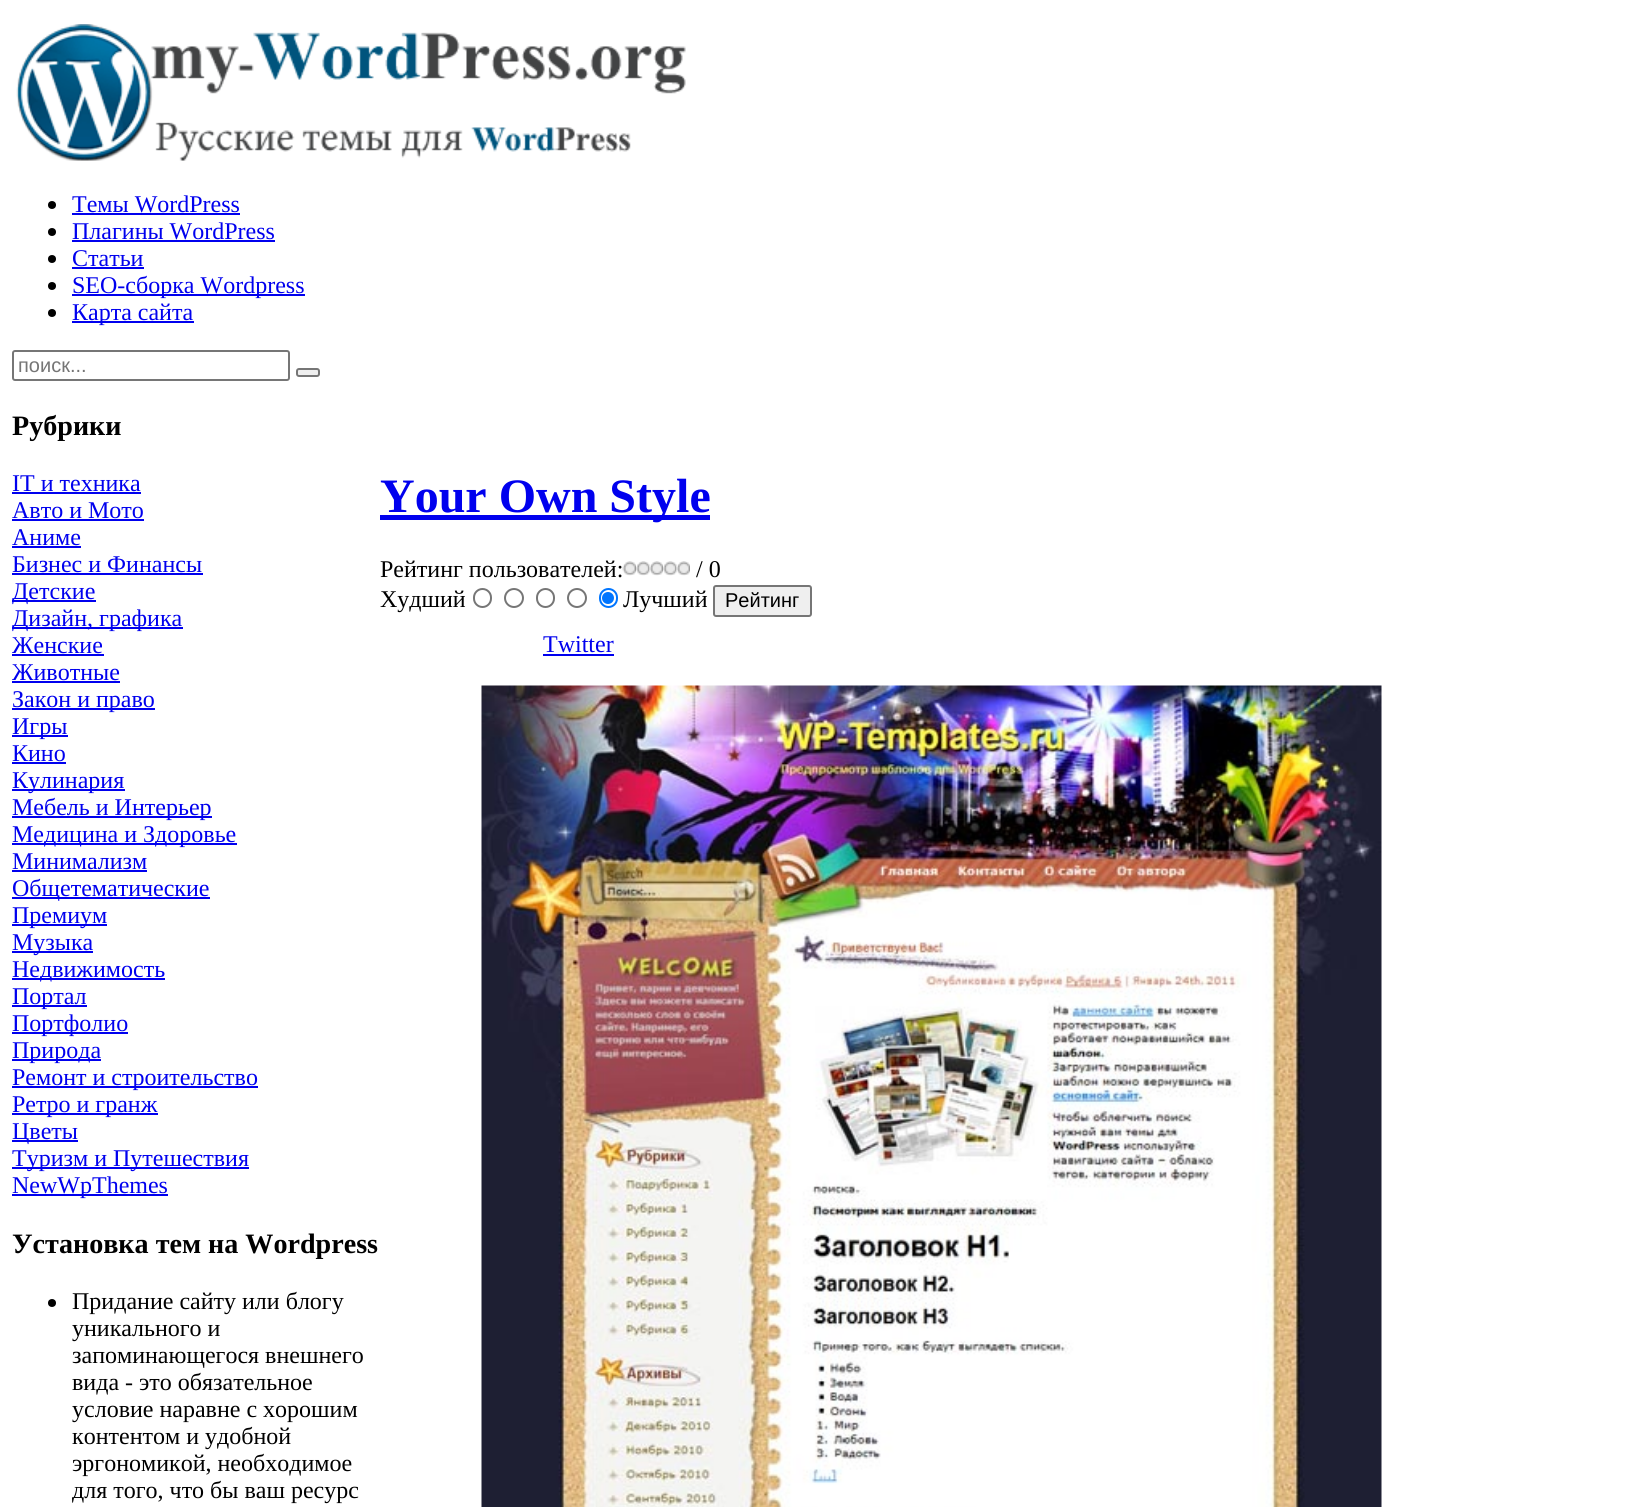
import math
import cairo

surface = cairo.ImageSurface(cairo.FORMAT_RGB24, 1642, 1507)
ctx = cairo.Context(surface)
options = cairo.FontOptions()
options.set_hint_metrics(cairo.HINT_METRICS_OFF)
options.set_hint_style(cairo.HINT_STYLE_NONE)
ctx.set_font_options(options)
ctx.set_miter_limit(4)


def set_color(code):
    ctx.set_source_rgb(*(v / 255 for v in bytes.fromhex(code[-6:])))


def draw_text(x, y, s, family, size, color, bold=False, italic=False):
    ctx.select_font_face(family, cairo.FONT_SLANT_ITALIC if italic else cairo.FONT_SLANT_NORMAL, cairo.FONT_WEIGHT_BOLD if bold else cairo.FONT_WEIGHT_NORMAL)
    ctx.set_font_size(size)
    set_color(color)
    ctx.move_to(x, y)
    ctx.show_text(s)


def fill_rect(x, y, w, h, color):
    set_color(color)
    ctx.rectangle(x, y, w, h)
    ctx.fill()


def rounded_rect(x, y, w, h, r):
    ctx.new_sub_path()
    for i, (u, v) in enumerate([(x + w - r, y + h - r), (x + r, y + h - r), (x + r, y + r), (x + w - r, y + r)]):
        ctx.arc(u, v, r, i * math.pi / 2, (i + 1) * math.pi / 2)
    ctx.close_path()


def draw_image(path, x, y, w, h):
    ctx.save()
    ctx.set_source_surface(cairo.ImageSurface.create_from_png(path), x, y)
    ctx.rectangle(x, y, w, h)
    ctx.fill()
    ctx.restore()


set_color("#ffffff")
ctx.paint()
draw_image("assets/img1.png", 16, 24, 670, 137)
set_color("#000000")
ctx.arc(52, 205, 4, 0, 2 * math.pi)
ctx.fill()
draw_text(72, 212, "Темы WordPress", "Liberation Serif", 24, "#0000ee")
fill_rect(72, 213, 168, 2, "#0000ee")
set_color("#000000")
ctx.new_path()
ctx.arc(52, 232, 4, 0, 2 * math.pi)
ctx.fill()
draw_text(72, 239, "Плагины WordPress", "Liberation Serif", 24, "#0000ee")
fill_rect(72, 240, 203, 2, "#0000ee")
set_color("#000000")
ctx.new_path()
ctx.arc(52, 259, 4, 0, 2 * math.pi)
ctx.fill()
draw_text(72, 266, "Статьи", "Liberation Serif", 24, "#0000ee")
fill_rect(72, 267, 72, 2, "#0000ee")
set_color("#000000")
ctx.new_path()
ctx.arc(52, 286, 4, 0, 2 * math.pi)
ctx.fill()
fill_rect(72, 294, 233, 2, "#0000ee")
draw_text(72, 293, "SEO-cборка Wordpress", "Liberation Serif", 24, "#0000ee")
set_color("#000000")
ctx.new_path()
ctx.arc(52, 313, 4, 0, 2 * math.pi)
ctx.fill()
fill_rect(72, 321, 122, 2, "#0000ee")
draw_text(72, 320, "Карта сайта", "Liberation Serif", 24, "#0000ee")
rounded_rect(13, 351, 276, 29, 2)
set_color("#767676")
ctx.stroke()
draw_text(18, 372, "поиск...", "Liberation Sans", 20, "#757575")
set_color("#efefef")
rounded_rect(297, 369, 22, 7, 2)
ctx.fill_preserve()
set_color("#767676")
ctx.stroke()
draw_text(12, 435, "Рубрики", "Liberation Serif", 28.1, "#000000", bold=True)
draw_text(12, 491, "IT и техника", "Liberation Serif", 24, "#0000ee")
fill_rect(12, 492, 129, 2, "#0000ee")
draw_text(12, 518, "Авто и Мото", "Liberation Serif", 24, "#0000ee")
fill_rect(12, 519, 132, 2, "#0000ee")
draw_text(12, 545, "Аниме", "Liberation Serif", 24, "#0000ee")
fill_rect(12, 546, 69, 2, "#0000ee")
draw_text(12, 572, "Бизнес и Финансы", "Liberation Serif", 24, "#0000ee")
fill_rect(12, 573, 191, 2, "#0000ee")
fill_rect(12, 600, 84, 2, "#0000ee")
draw_text(12, 599, "Детские", "Liberation Serif", 24, "#0000ee")
fill_rect(12, 627, 171, 2, "#0000ee")
draw_text(12, 626, "Дизайн, графика", "Liberation Serif", 24, "#0000ee")
draw_text(12, 653, "Женские", "Liberation Serif", 24, "#0000ee")
fill_rect(12, 654, 92, 2, "#0000ee")
draw_text(12, 680, "Животные", "Liberation Serif", 24, "#0000ee")
fill_rect(12, 681, 108, 2, "#0000ee")
fill_rect(12, 708, 143, 2, "#0000ee")
draw_text(12, 707, "Закон и право", "Liberation Serif", 24, "#0000ee")
fill_rect(12, 735, 56, 2, "#0000ee")
draw_text(12, 734, "Игры", "Liberation Serif", 24, "#0000ee")
draw_text(12, 761, "Кино", "Liberation Serif", 24, "#0000ee")
fill_rect(12, 762, 54, 2, "#0000ee")
fill_rect(12, 789, 113, 2, "#0000ee")
draw_text(12, 788, "Кулинария", "Liberation Serif", 24, "#0000ee")
fill_rect(12, 816, 200, 2, "#0000ee")
draw_text(12, 815, "Мебель и Интерьер", "Liberation Serif", 24, "#0000ee")
fill_rect(12, 843, 225, 2, "#0000ee")
draw_text(12, 842, "Медицина и Здоровье", "Liberation Serif", 24, "#0000ee")
draw_text(12, 869, "Минимализм", "Liberation Serif", 24, "#0000ee")
fill_rect(12, 870, 135, 2, "#0000ee")
fill_rect(12, 897, 198, 2, "#0000ee")
draw_text(12, 896, "Общетематические", "Liberation Serif", 24, "#0000ee")
fill_rect(12, 924, 95, 2, "#0000ee")
draw_text(12, 923, "Премиум", "Liberation Serif", 24, "#0000ee")
fill_rect(12, 951, 81, 2, "#0000ee")
draw_text(12, 950, "Музыка", "Liberation Serif", 24, "#0000ee")
fill_rect(12, 978, 153, 2, "#0000ee")
draw_text(12, 977, "Недвижимость", "Liberation Serif", 24, "#0000ee")
fill_rect(12, 1005, 75, 2, "#0000ee")
draw_text(12, 1004, "Портал", "Liberation Serif", 24, "#0000ee")
fill_rect(12, 1032, 116, 2, "#0000ee")
draw_text(12, 1031, "Портфолио", "Liberation Serif", 24, "#0000ee")
fill_rect(12, 1059, 89, 2, "#0000ee")
draw_text(12, 1058, "Природа", "Liberation Serif", 24, "#0000ee")
fill_rect(12, 1086, 246, 2, "#0000ee")
draw_text(12, 1085, "Ремонт и строительство", "Liberation Serif", 24, "#0000ee")
fill_rect(12, 1113, 146, 2, "#0000ee")
draw_text(12, 1112, "Ретро и гранж", "Liberation Serif", 24, "#0000ee")
fill_rect(12, 1140, 66, 2, "#0000ee")
draw_text(12, 1139, "Цветы", "Liberation Serif", 24, "#0000ee")
fill_rect(12, 1167, 237, 2, "#0000ee")
draw_text(12, 1166, "Туризм и Путешествия", "Liberation Serif", 24, "#0000ee")
fill_rect(12, 1194, 156, 2, "#0000ee")
draw_text(12, 1193, "NewWpThemes", "Liberation Serif", 24, "#0000ee")
draw_text(12, 1253, "Установка тем на Wordpress", "Liberation Serif", 28.1, "#000000", bold=True)
ctx.new_path()
ctx.arc(52, 1303, 4, 0, 2 * math.pi)
ctx.fill()
draw_text(72, 1309, "Придание сайту или блогу", "Liberation Serif", 24, "#000000")
draw_text(72, 1336, "уникального и", "Liberation Serif", 24, "#000000")
draw_text(72, 1363, "запоминающегося внешнего", "Liberation Serif", 24, "#000000")
draw_text(72, 1390, "вида - это обязательное", "Liberation Serif", 24, "#000000")
draw_text(72, 1417, "условие наравне с хорошим", "Liberation Serif", 24, "#000000")
draw_text(72, 1444, "контентом и удобной", "Liberation Serif", 24, "#000000")
draw_text(72, 1471, "эргономикой, необходимое", "Liberation Serif", 24, "#000000")
draw_text(72, 1498, "для того, что бы ваш ресурс", "Liberation Serif", 24, "#000000")
fill_rect(380, 515, 330, 5, "#0000ee")
draw_text(380, 512, "Your Own Style", "Liberation Serif", 48, "#0000ee", bold=True)
draw_text(380, 577, "Рейтинг пользователей:", "Liberation Serif", 24, "#000000")
draw_image("assets/img2.png", 622, 561, 14, 15)
draw_image("assets/img3.png", 636, 561, 14, 15)
draw_image("assets/img4.png", 649, 561, 14, 15)
draw_image("assets/img3.png", 663, 561, 14, 15)
draw_image("assets/img4.png", 676, 561, 14, 15)
draw_text(696, 577, "/ 0", "Liberation Serif", 24, "#000000")
draw_text(380, 607, "Худший", "Liberation Serif", 24, "#000000")
rounded_rect(474, 589, 17, 18, 8.5)
set_color("#767676")
ctx.stroke()
ctx.arc(514, 598, 9, 0, 2 * math.pi)
ctx.stroke()
rounded_rect(537, 589, 17, 18, 8.5)
ctx.stroke()
ctx.arc(577, 598, 9, 0, 2 * math.pi)
ctx.stroke()
rounded_rect(600, 589, 17, 18, 8.5)
set_color("#0075ff")
ctx.stroke()
ctx.arc(608, 598, 6, 0, 2 * math.pi)
ctx.fill()
draw_text(623, 607, "Лучший", "Liberation Serif", 24, "#000000")
set_color("#efefef")
rounded_rect(714, 586, 97, 30, 2)
ctx.fill_preserve()
set_color("#767676")
ctx.stroke()
draw_text(725, 607, "Рейтинг", "Liberation Sans", 20, "#000000")
draw_text(543, 652, "Twitter", "Liberation Serif", 24, "#0000ee")
fill_rect(543, 654, 71, 2, "#0000ee")
draw_image("assets/img5.png", 481, 685, 901, 822)
surface.write_to_png("output.png")
